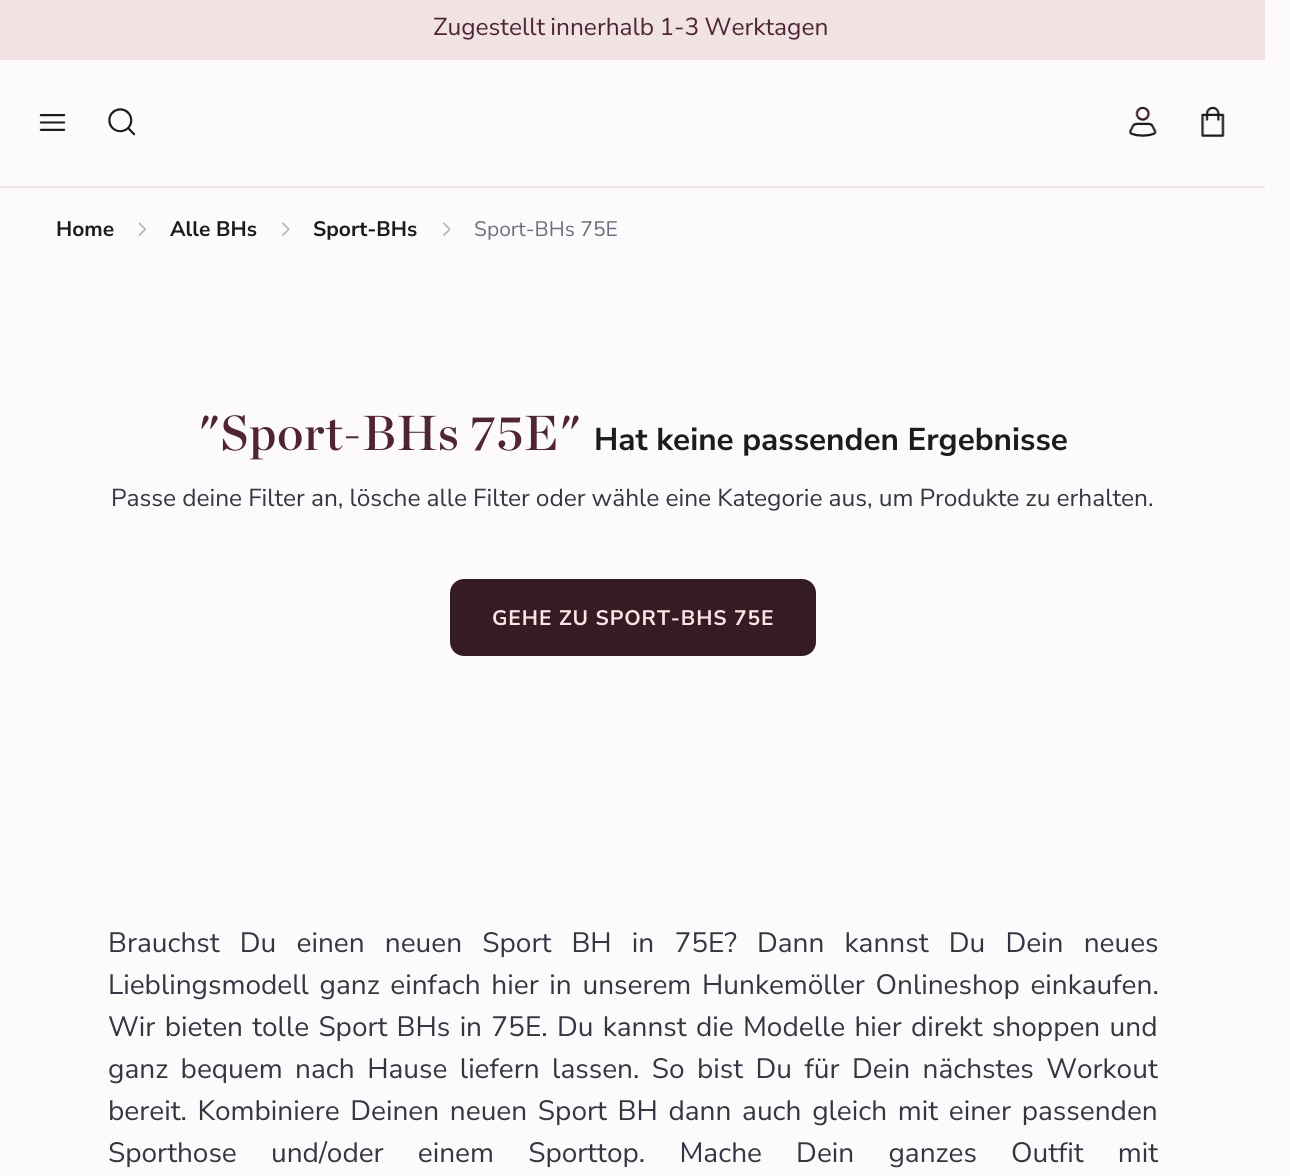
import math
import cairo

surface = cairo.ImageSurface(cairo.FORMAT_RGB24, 1290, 1176)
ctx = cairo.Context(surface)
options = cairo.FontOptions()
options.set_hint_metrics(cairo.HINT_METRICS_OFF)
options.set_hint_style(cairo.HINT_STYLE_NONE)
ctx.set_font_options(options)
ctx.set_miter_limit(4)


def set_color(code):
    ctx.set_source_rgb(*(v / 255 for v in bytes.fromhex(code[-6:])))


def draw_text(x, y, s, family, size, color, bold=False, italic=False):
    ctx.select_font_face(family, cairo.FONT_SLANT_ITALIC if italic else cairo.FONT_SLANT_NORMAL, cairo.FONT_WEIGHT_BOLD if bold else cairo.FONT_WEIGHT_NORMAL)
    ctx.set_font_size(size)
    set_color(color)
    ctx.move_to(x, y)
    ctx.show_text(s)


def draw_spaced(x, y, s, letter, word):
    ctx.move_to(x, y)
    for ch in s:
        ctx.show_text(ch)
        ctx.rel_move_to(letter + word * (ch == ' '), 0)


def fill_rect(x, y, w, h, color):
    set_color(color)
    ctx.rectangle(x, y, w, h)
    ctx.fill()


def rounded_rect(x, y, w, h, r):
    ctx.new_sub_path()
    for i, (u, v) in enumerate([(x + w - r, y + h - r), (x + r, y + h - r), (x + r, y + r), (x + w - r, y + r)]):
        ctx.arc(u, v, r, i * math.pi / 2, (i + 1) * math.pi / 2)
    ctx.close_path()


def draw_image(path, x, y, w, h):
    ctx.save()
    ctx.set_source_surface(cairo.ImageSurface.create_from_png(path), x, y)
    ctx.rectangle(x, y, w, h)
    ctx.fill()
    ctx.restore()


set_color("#fcfafb")
ctx.paint()
fill_rect(0, 0, 1265, 60, "#f1e2e3")
ctx.select_font_face("Nunito Sans ExtraLight")
ctx.set_font_size(24.5)
set_color("#4f2534")
draw_spaced(433, 35, "Zugestellt innerhalb 1-3 Werktagen", 0, -1)
draw_image("assets/img1.png", 39, 114, 27, 17)
draw_image("assets/img2.png", 108, 108, 28, 28)
draw_image("assets/img3.png", 1129, 106, 28, 31)
draw_image("assets/img4.png", 1201, 106, 24, 31)
fill_rect(0, 186, 1265, 2, "#f1e2e3")
draw_text(56, 236, "Home", "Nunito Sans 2 ExtraLight", 21, "#1c1c1f")
draw_image("assets/img5.png", 138, 222, 8, 14)
draw_text(170, 236, "Alle BHs", "Nunito Sans 2 ExtraLight", 21, "#1c1c1f")
draw_image("assets/img6.png", 282, 222, 8, 14)
draw_text(313, 236, "Sport-BHs", "Nunito Sans 2 ExtraLight", 21, "#1c1c1f")
draw_image("assets/img6.png", 443, 222, 8, 14)
draw_text(474, 236, "Sport-BHs 75E", "Nunito Sans ExtraLight", 21, "#6e6e80")
ctx.select_font_face("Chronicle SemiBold")
ctx.set_font_size(49)
set_color("#4f2534")
draw_spaced(198, 450, "\"Sport-BHs 75E\"", 0.9, 0)
draw_text(594, 450, "Hat keine passenden Ergebnisse", "Nunito Sans 2 ExtraLight", 31.5, "#1c1c1f")
ctx.select_font_face("Nunito Sans ExtraLight")
ctx.set_font_size(24.5)
set_color("#363642")
draw_spaced(111, 506, "Passe deine Filter an, lösche alle Filter oder wähle eine Kategorie aus, um Produkte zu erhalten.", 0, -0.25)
set_color("#351c22")
rounded_rect(450, 579, 366, 77, 14)
ctx.fill()
ctx.select_font_face("Nunito Sans 2 ExtraLight")
ctx.set_font_size(21)
set_color("#fce1e7")
draw_spaced(492, 625, "GEHE ZU SPORT-BHS 75E", 0.9, 0)
ctx.select_font_face("Nunito Sans ExtraLight")
ctx.set_font_size(28)
set_color("#363642")
draw_spaced(108, 952, "Brauchst Du einen neuen Sport BH in 75E? Dann kannst Du Dein neues", 0, 13)
draw_spaced(108, 994, "Lieblingsmodell ganz einfach hier in unserem Hunkemöller Onlineshop einkaufen.", 0, 3.5)
draw_spaced(108, 1036, "Wir bieten tolle Sport BHs in 75E. Du kannst die Modelle hier direkt shoppen und", 0, 2.1)
draw_spaced(108, 1078, "ganz bequem nach Hause liefern lassen. So bist Du für Dein nächstes Workout", 0, 5.25)
draw_spaced(108, 1120, "bereit. Kombiniere Deinen neuen Sport BH dann auch gleich mit einer passenden", 0, 3.5)
draw_spaced(108, 1162, "Sporthose und/oder einem Sporttop. Mache Dein ganzes Outfit mit", 0, 27)
surface.write_to_png("output.png")
